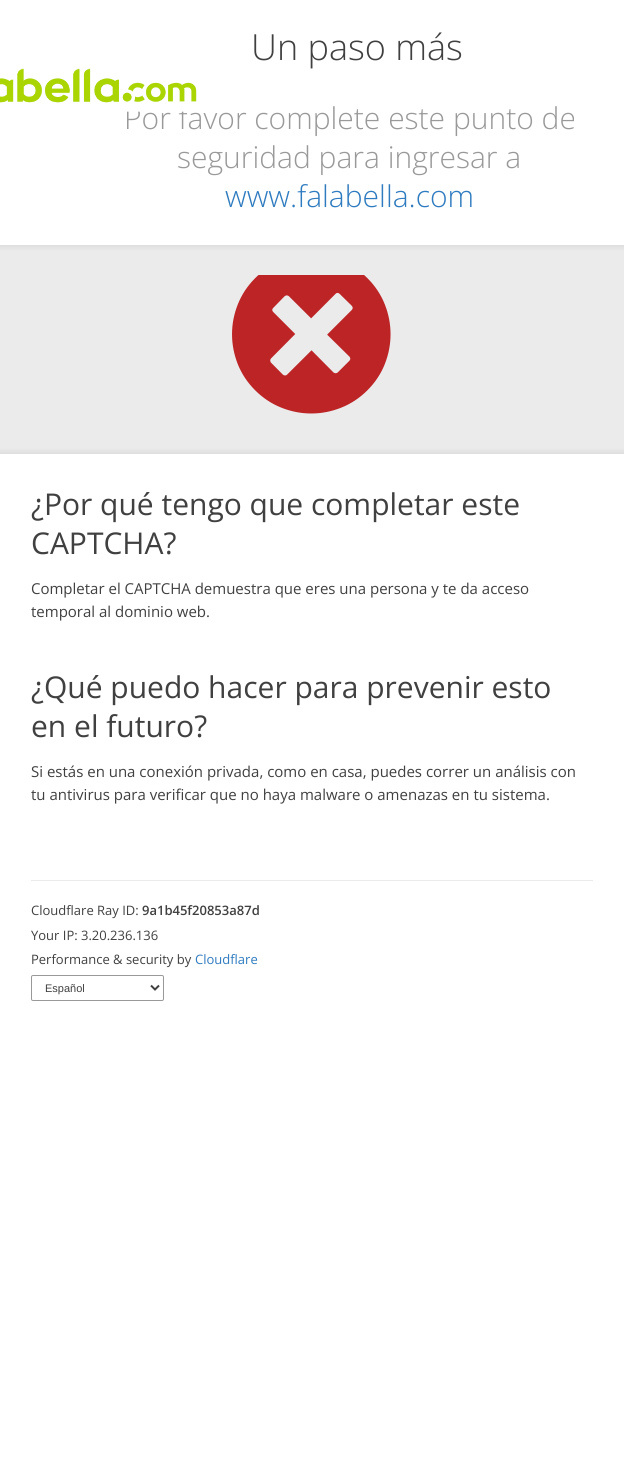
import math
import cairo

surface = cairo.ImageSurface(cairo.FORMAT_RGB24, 624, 1473)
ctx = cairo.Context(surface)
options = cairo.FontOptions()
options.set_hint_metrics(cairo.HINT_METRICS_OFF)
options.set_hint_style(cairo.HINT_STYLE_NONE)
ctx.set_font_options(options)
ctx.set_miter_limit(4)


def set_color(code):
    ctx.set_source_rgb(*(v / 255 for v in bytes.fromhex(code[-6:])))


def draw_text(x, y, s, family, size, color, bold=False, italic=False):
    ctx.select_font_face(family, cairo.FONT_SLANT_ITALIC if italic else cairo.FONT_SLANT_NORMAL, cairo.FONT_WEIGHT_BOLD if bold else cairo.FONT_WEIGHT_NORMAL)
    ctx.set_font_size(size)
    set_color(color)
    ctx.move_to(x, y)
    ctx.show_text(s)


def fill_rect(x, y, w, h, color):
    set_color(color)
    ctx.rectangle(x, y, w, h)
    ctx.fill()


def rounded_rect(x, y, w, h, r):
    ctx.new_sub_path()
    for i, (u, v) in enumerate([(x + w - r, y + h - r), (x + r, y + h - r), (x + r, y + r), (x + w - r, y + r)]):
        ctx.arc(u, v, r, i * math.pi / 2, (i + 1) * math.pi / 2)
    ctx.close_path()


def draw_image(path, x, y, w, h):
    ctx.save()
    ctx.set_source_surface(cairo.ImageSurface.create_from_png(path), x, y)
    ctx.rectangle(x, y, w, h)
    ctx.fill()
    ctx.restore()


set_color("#ffffff")
ctx.paint()
draw_text(251, 60, "Un paso más", "Open Sans Light", 36, "#404040")
draw_text(124, 129, "Por favor complete este punto de", "Open Sans Light", 30, "#999999")
draw_image("assets/img1.png", 0, 68, 197, 44)
draw_text(177, 168, "seguridad para ingresar a", "Open Sans Light", 30, "#999999")
draw_text(225, 207, "www.falabella.com", "Open Sans Light", 30, "#2f7bbf")
gradient = cairo.LinearGradient(312, 245, 312, 454)
gradient.add_color_stop_rgba(0, 0.871, 0.871, 0.871, 1)
gradient.add_color_stop_rgba(0.03, 0.922, 0.922, 0.922, 1)
gradient.add_color_stop_rgba(0.97, 0.922, 0.922, 0.922, 1)
gradient.add_color_stop_rgba(1, 0.871, 0.871, 0.871, 1)
ctx.set_source(gradient)
ctx.rectangle(0, 245, 624, 209)
ctx.fill()
draw_image("assets/img2.png", 232, 275, 159, 139)
draw_text(31, 515, "¿Por qué tengo que completar este", "Open Sans", 30, "#404040")
draw_text(31, 554, "CAPTCHA?", "Open Sans", 30, "#404040")
draw_text(31, 594, "Completar el CAPTCHA demuestra que eres una persona y te da acceso", "Open Sans", 15, "#404040")
draw_text(31, 617, "temporal al dominio web.", "Open Sans", 15, "#404040")
draw_text(31, 698, "¿Qué puedo hacer para prevenir esto", "Open Sans", 30, "#404040")
draw_text(31, 737, "en el futuro?", "Open Sans", 30, "#404040")
draw_text(31, 777, "Si estás en una conexión privada, como en casa, puedes correr un análisis con", "Open Sans", 15, "#404040")
draw_text(31, 800, "tu antivirus para verificar que no haya malware o amenazas en tu sistema.", "Open Sans", 15, "#404040")
fill_rect(31, 880, 562, 1, "#ebebeb")
draw_text(31, 915, "Cloudflare Ray ID:", "Open Sans", 13, "#404040")
draw_text(142, 915, "9a1b45f20853a87d", "Open Sans SemiBold", 13, "#404040")
draw_text(31, 940, "Your IP: 3.20.236.136", "Open Sans", 13, "#404040")
draw_text(31, 964, "Performance & security by", "Open Sans", 13, "#404040")
draw_text(195, 964, "Cloudflare", "Open Sans", 13, "#2f7bbf")
rounded_rect(31.5, 975.5, 132, 25, 1.5)
set_color("#999999")
ctx.set_line_width(1)
ctx.stroke()
ctx.new_path()
ctx.move_to(151, 985.5)
ctx.line_to(155, 989.5)
ctx.line_to(159, 985.5)
set_color("#404040")
ctx.set_line_width(2)
ctx.stroke()
draw_text(45, 992, "Español", "Liberation Sans", 11, "#404040")
surface.write_to_png("output.png")
